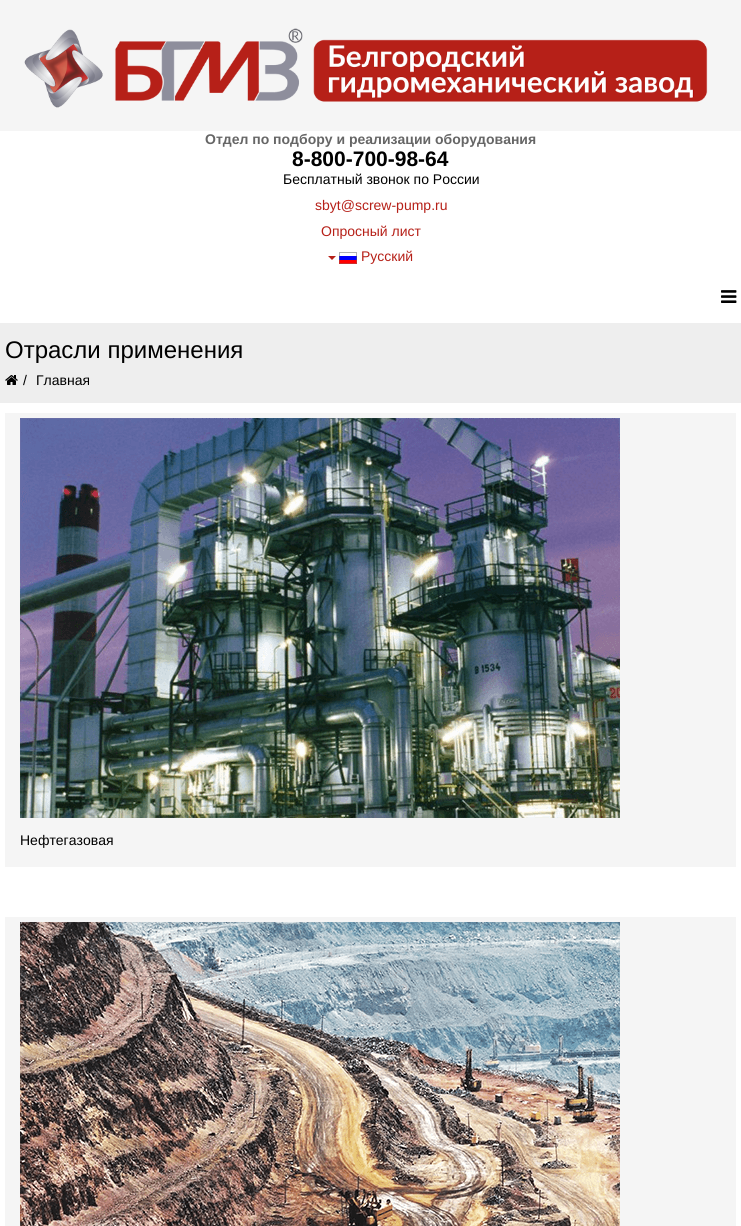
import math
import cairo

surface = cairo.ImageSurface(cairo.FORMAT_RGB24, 741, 1226)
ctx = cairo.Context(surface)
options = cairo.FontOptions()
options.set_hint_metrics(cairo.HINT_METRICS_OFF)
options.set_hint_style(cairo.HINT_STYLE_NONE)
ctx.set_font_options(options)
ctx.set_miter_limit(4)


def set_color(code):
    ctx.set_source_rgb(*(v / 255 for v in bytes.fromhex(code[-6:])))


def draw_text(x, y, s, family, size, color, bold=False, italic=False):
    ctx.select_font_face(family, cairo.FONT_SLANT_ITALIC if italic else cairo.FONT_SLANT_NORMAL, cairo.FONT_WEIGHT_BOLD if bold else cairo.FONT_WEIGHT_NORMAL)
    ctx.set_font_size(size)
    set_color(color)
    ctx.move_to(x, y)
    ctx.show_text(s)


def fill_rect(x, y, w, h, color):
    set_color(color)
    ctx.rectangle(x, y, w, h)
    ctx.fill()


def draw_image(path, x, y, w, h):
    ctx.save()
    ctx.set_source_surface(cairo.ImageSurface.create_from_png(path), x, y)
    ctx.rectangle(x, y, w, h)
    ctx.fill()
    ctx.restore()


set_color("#ffffff")
ctx.paint()
fill_rect(0, 0, 741, 131, "#f5f5f5")
draw_image("assets/img1.png", 24, 28, 684, 80)
draw_text(205, 144, "Отдел по подбору и реализации оборудования", "Liberation Sans", 14, "#666666", bold=True)
draw_text(292, 166, "8-800-700-98-64", "Liberation Sans", 21, "#000000", bold=True)
draw_text(283, 184, "Бесплатный звонок по России", "Liberation Sans", 14, "#000000")
draw_text(315, 210, "sbyt@screw-pump.ru", "Liberation Sans", 14, "#b62018")
draw_text(321, 236, "Опросный лист", "Liberation Sans", 14, "#b62018")
ctx.new_path()
ctx.move_to(328, 256)
ctx.line_to(336, 256)
ctx.line_to(332, 260)
ctx.close_path()
ctx.fill()
draw_image("assets/img2.png", 339, 252, 18, 12)
draw_text(361, 261, "Русский", "Liberation Sans", 14, "#b62018")
draw_image("assets/img3.png", 721, 290, 16, 13)
fill_rect(0, 323, 741, 80, "#eeeeee")
draw_text(5, 358, "Отрасли применения", "Liberation Sans", 24, "#000000")
draw_image("assets/img4.png", 5, 375, 13, 10)
draw_text(23, 385, "/", "Liberation Sans", 14, "#000000")
draw_text(36, 385, "Главная", "Liberation Sans", 14, "#000000")
fill_rect(5, 413, 731, 454, "#f5f5f5")
draw_image("assets/img5.png", 20, 418, 600, 400)
draw_text(20, 845, "Нефтегазовая", "Liberation Sans", 14, "#000000")
fill_rect(5, 917, 731, 309, "#f5f5f5")
draw_image("assets/img6.png", 20, 922, 600, 304)
surface.write_to_png("output.png")
